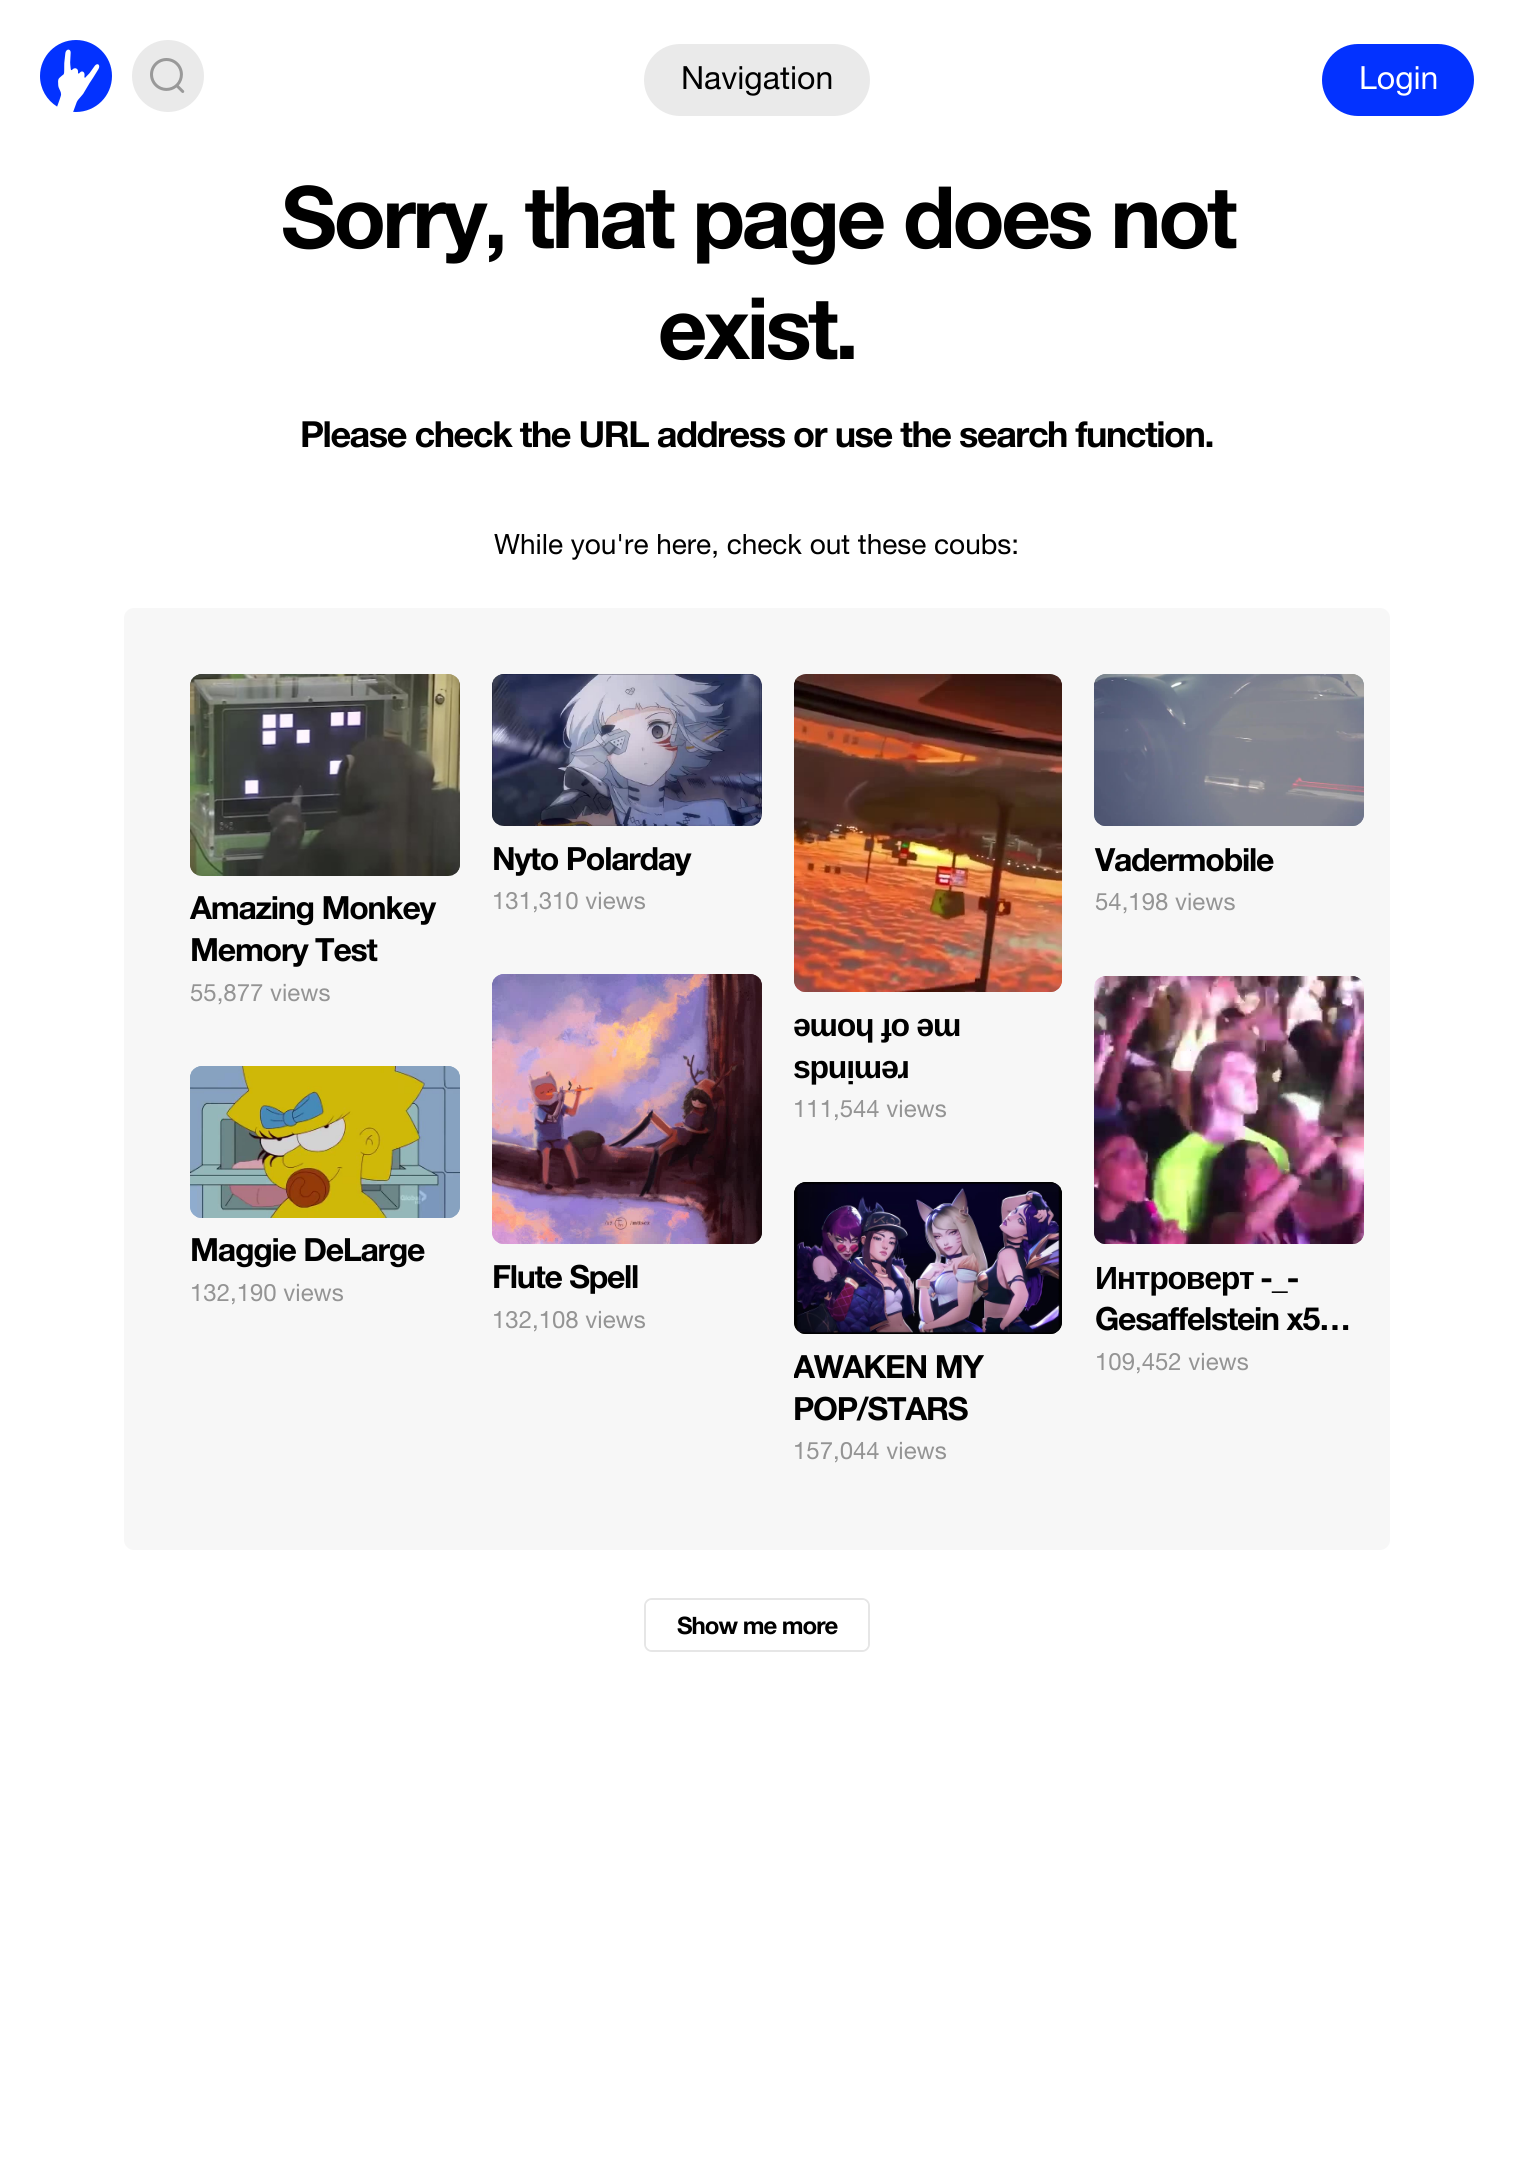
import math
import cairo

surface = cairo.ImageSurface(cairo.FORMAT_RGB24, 1514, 2157)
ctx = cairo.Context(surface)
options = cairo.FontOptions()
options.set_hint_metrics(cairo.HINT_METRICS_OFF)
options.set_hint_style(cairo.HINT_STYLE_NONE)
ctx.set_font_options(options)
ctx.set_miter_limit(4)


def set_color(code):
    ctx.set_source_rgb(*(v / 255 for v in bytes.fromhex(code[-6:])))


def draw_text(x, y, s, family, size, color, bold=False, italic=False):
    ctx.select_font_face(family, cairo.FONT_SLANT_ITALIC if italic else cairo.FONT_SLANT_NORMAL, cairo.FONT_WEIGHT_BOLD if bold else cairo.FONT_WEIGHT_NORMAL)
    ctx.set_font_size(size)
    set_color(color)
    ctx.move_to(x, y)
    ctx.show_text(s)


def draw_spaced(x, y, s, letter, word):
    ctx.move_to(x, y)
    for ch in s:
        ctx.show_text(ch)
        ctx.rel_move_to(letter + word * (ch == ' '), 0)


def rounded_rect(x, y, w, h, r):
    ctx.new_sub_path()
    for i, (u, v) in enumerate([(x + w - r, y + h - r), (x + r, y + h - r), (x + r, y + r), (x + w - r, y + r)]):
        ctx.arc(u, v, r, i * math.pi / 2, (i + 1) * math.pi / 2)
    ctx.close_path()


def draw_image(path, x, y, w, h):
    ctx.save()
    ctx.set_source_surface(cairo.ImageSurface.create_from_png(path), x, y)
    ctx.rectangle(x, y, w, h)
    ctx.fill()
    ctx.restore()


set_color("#ffffff")
ctx.paint()
draw_image("assets/img1.png", 40, 40, 72, 72)
set_color("#eaeaea")
ctx.arc(168, 76, 36, 0, 2 * math.pi)
ctx.fill()
draw_image("assets/img2.png", 150, 58, 35, 35)
rounded_rect(644, 44, 226, 72, 36)
ctx.fill()
draw_text(681, 89, "Navigation", "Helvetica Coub", 32, "#000000")
set_color("#0332ff")
rounded_rect(1322, 44, 152, 72, 36)
ctx.fill()
draw_text(1359, 89, "Login", "Helvetica Coub", 32, "#ffffff")
ctx.select_font_face("Helvetica Coub", cairo.FONT_SLANT_NORMAL, cairo.FONT_WEIGHT_BOLD)
ctx.set_font_size(86)
set_color("#000000")
draw_spaced(281, 248, "Sorry, that page does not", -3.4, 0)
draw_spaced(658, 359, "exist.", -3.4, 0)
ctx.set_font_size(36)
draw_spaced(300, 447, "Please check the URL address or use the search function.", -1.45, 0)
draw_text(494, 554, "While you're here, check out these coubs:", "Helvetica Coub", 28, "#000000")
set_color("#f7f7f7")
rounded_rect(124, 608, 1266, 942, 10)
ctx.fill()
draw_image("assets/img3.png", 492, 674, 270, 152)
draw_image("assets/img4.png", 492, 674, 268, 150)
ctx.select_font_face("Helvetica Coub", cairo.FONT_SLANT_NORMAL, cairo.FONT_WEIGHT_BOLD)
ctx.set_font_size(32)
set_color("#000000")
draw_spaced(492, 870, "Nyto Polarday", -1.25, 0)
draw_text(492, 909, "131,310 views", "Helvetica Coub", 24, "#949494")
draw_image("assets/img5.png", 1094, 674, 270, 152)
draw_image("assets/img6.png", 1094, 674, 270, 152)
ctx.select_font_face("Helvetica Coub", cairo.FONT_SLANT_NORMAL, cairo.FONT_WEIGHT_BOLD)
ctx.set_font_size(32)
set_color("#000000")
draw_spaced(1095, 871, "Vadermobile", -1.25, 0)
draw_text(1095, 910, "54,198 views", "Helvetica Coub", 24, "#949494")
draw_image("assets/img7.png", 190, 674, 270, 202)
draw_image("assets/img8.png", 190, 674, 270, 200)
ctx.select_font_face("Helvetica Coub", cairo.FONT_SLANT_NORMAL, cairo.FONT_WEIGHT_BOLD)
ctx.set_font_size(32)
set_color("#000000")
draw_spaced(190, 919, "Amazing Monkey", -1.25, 0)
draw_spaced(190, 961, "Memory Test", -1.25, 0)
draw_text(190, 1001, "55,877 views", "Helvetica Coub", 24, "#949494")
draw_image("assets/img9.png", 794, 674, 268, 318)
draw_image("assets/img10.png", 794, 676, 268, 316)
ctx.select_font_face("Liberation Sans", cairo.FONT_SLANT_NORMAL, cairo.FONT_WEIGHT_BOLD)
ctx.set_font_size(32)
set_color("#000000")
draw_spaced(793, 1036, "ǝɯoɥ ɟo ǝɯ", -1.25, 0)
draw_spaced(793, 1078, "spuᴉɯǝɹ", -1.25, 0)
draw_text(793, 1117, "111,544 views", "Helvetica Coub", 24, "#949494")
draw_image("assets/img11.png", 190, 1066, 270, 152)
draw_image("assets/img12.png", 190, 1066, 270, 152)
ctx.select_font_face("Helvetica Coub", cairo.FONT_SLANT_NORMAL, cairo.FONT_WEIGHT_BOLD)
ctx.set_font_size(32)
set_color("#000000")
draw_spaced(190, 1261, "Maggie DeLarge", -1.25, 0)
draw_text(190, 1301, "132,190 views", "Helvetica Coub", 24, "#949494")
draw_image("assets/img13.png", 492, 974, 270, 270)
draw_image("assets/img14.png", 492, 974, 270, 270)
ctx.select_font_face("Helvetica Coub", cairo.FONT_SLANT_NORMAL, cairo.FONT_WEIGHT_BOLD)
ctx.set_font_size(32)
set_color("#000000")
draw_spaced(492, 1288, "Flute Spell", -1.25, 0)
draw_text(492, 1328, "132,108 views", "Helvetica Coub", 24, "#949494")
draw_image("assets/img15.png", 1094, 976, 270, 268)
draw_image("assets/img16.png", 1094, 976, 270, 268)
ctx.select_font_face("Liberation Sans", cairo.FONT_SLANT_NORMAL, cairo.FONT_WEIGHT_BOLD)
ctx.set_font_size(32)
set_color("#000000")
draw_spaced(1095, 1289, "Интроверт", -1.25, 0)
ctx.select_font_face("Helvetica Coub", cairo.FONT_SLANT_NORMAL, cairo.FONT_WEIGHT_BOLD)
draw_spaced(1260, 1289, "-_-", -1.25, 0)
draw_spaced(1095, 1330, "Gesaffelstein x5…", -1.25, 0)
draw_text(1095, 1370, "109,452 views", "Helvetica Coub", 24, "#949494")
draw_image("assets/img17.png", 794, 1182, 268, 152)
draw_image("assets/img18.png", 794, 1182, 268, 152)
ctx.save()
ctx.rectangle(794, 1348, 268, 84)
ctx.clip()
ctx.select_font_face("Helvetica Coub", cairo.FONT_SLANT_NORMAL, cairo.FONT_WEIGHT_BOLD)
ctx.set_font_size(32)
set_color("#000000")
draw_spaced(793, 1378, "AWAKEN MY", -1.25, 0)
ctx.restore()
ctx.select_font_face("Helvetica Coub", cairo.FONT_SLANT_NORMAL, cairo.FONT_WEIGHT_BOLD)
ctx.set_font_size(32)
set_color("#000000")
draw_spaced(793, 1420, "POP/STARS", -1.25, 0)
draw_text(793, 1459, "157,044 views", "Helvetica Coub", 24, "#949494")
rounded_rect(645, 1599, 224, 52, 7)
set_color("#e6e6e6")
ctx.stroke()
set_color("#ffffff")
rounded_rect(646, 1600, 222, 50, 6)
ctx.fill()
ctx.select_font_face("Helvetica Coub", cairo.FONT_SLANT_NORMAL, cairo.FONT_WEIGHT_BOLD)
set_color("#000000")
draw_spaced(677, 1634, "Show me more", -1, 0)
surface.write_to_png("output.png")
